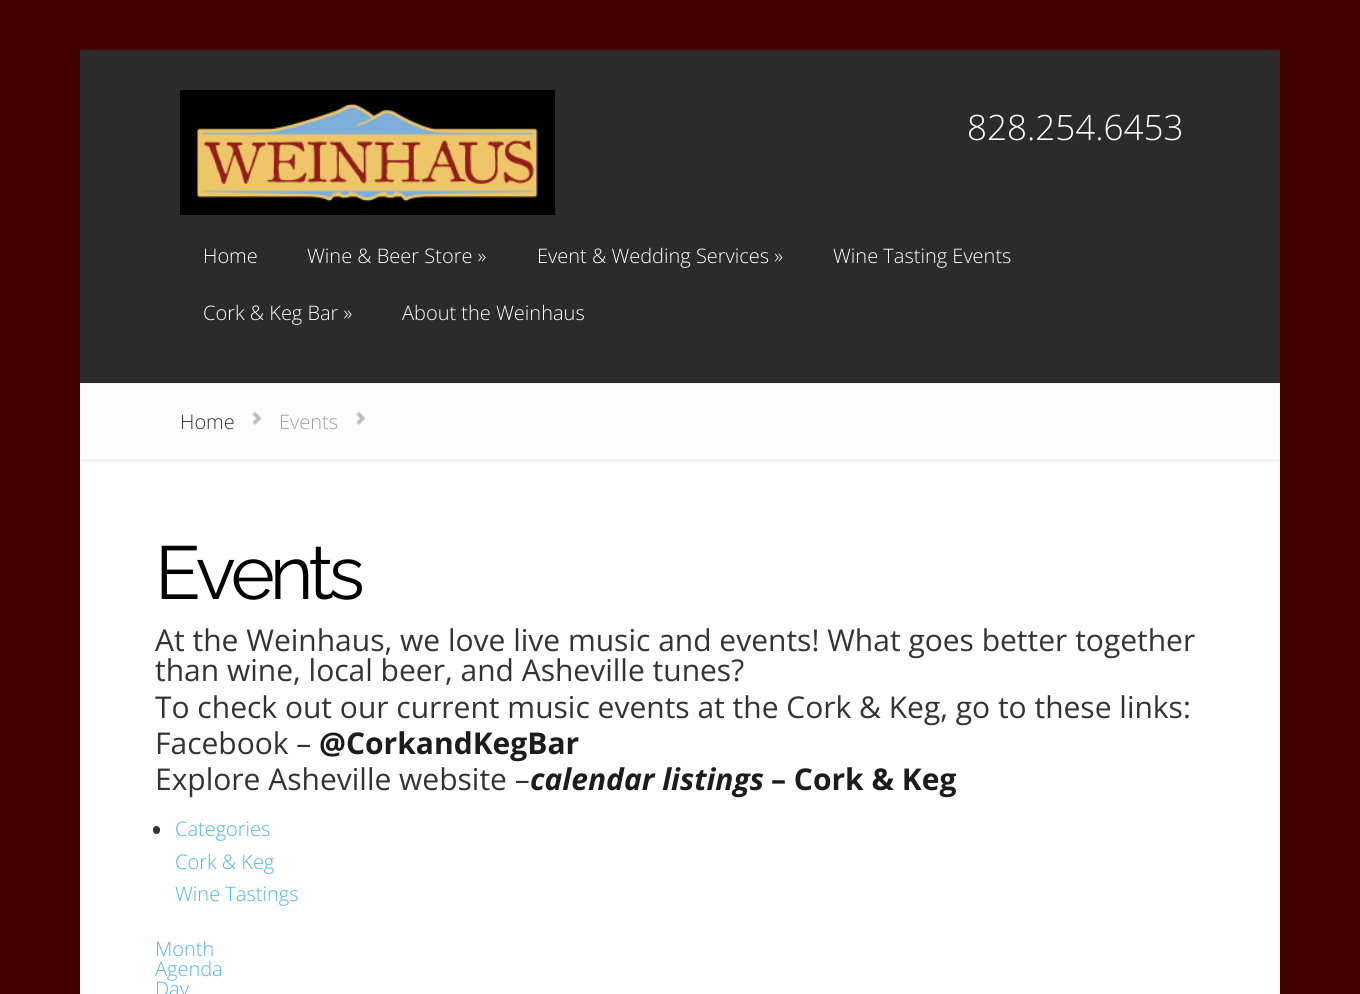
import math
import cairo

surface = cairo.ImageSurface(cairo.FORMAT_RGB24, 1360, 994)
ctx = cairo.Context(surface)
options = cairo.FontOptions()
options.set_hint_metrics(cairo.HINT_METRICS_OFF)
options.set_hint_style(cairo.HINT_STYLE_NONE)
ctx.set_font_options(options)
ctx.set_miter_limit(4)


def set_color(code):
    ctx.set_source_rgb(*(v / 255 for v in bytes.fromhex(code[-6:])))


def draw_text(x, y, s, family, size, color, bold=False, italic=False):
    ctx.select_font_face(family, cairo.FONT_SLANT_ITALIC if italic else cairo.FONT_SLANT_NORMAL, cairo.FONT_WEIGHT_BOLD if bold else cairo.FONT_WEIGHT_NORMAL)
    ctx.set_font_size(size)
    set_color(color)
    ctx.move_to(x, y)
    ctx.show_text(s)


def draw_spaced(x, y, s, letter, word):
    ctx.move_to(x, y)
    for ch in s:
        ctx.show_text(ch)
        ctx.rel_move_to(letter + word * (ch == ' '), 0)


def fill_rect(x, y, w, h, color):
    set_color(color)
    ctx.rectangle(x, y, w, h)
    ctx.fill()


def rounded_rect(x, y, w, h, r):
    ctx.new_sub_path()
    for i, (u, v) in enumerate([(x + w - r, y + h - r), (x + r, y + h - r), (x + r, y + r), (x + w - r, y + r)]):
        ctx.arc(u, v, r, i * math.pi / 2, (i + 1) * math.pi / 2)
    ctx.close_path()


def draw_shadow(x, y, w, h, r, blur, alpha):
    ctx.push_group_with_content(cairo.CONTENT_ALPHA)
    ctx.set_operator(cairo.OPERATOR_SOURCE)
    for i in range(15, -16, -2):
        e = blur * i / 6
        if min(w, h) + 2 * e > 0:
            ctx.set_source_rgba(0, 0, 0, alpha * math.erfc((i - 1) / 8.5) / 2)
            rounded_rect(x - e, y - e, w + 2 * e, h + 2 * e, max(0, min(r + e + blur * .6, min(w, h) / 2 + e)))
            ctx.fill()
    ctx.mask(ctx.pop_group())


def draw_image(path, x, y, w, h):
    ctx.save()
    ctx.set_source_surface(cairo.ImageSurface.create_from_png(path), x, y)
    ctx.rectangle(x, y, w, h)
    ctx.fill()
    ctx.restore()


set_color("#430000")
ctx.paint()
fill_rect(80, 460, 1200, 534, "#ffffff")
fill_rect(80, 50, 1200, 333, "#2b2b2b")
draw_image("assets/img1.png", 180, 90, 375, 125)
draw_text(967, 140, "828.254.6453", "Open Sans Light", 35, "#ffffff")
draw_text(203, 263, "Home", "Open Sans Light", 20, "#ffffff")
draw_text(307, 263, "Wine & Beer Store »", "Open Sans Light", 20, "#ffffff")
draw_text(537, 263, "Event & Wedding Services »", "Open Sans Light", 20, "#ffffff")
draw_text(833, 263, "Wine Tasting Events", "Open Sans Light", 20, "#ffffff")
draw_text(203, 320, "Cork & Keg Bar »", "Open Sans Light", 20, "#ffffff")
draw_text(402, 320, "About the Weinhaus", "Open Sans Light", 20, "#ffffff")
set_color("#000000")
draw_shadow(80, 384, 1200, 77, 0, 2, 0.1)
fill_rect(80, 385, 1200, 73, "#fcfcfc")
fill_rect(80, 458, 1200, 1, "#ffffff")
fill_rect(80, 384, 1200, 1, "#ffffff")
fill_rect(80, 383, 1200, 1, "#f2f2f2")
fill_rect(80, 459, 1200, 1, "#f2f2f2")
draw_text(180, 429, "Home", "Open Sans Light", 20, "#333333")
draw_image("assets/img2.png", 252, 411, 10, 14)
draw_text(279, 429, "Events", "Open Sans Light", 20, "#9f9f9f")
draw_image("assets/img3.png", 356, 411, 9, 14)
ctx.select_font_face("Raleway")
ctx.set_font_size(75)
set_color("#000000")
draw_spaced(155, 599, "Events", -5, 0)
draw_text(155, 651, "At the Weinhaus, we love live music and events! What goes better together", "Open Sans", 30, "#333333")
draw_text(155, 681, "than wine, local beer, and Asheville tunes?", "Open Sans", 30, "#333333")
draw_text(155, 718, "To check out our current music events at the Cork & Keg, go to these links:", "Open Sans", 30, "#333333")
draw_text(155, 754, "Facebook –", "Open Sans", 30, "#333333")
draw_text(319, 754, "@CorkandKegBar", "Open Sans", 30, "#1c1c1c", bold=True)
draw_text(155, 790, "Explore Asheville website –", "Open Sans", 30, "#333333")
draw_text(530, 790, "calendar listings", "Open Sans", 30, "#1c1c1c", bold=True, italic=True)
draw_text(771, 790, "– Cork & Keg", "Open Sans", 30, "#1c1c1c", bold=True)
set_color("#333333")
rounded_rect(153, 826, 7, 8, 3.5)
ctx.fill()
draw_text(175, 836, "Categories", "Open Sans Light", 20, "#4bb6f5")
draw_text(175, 869, "Cork & Keg", "Open Sans Light", 20, "#4bb6f5")
draw_text(175, 901, "Wine Tastings", "Open Sans Light", 20, "#4bb6f5")
draw_text(155, 956, "Month", "Open Sans Light", 20, "#4bb6f5")
draw_text(155, 976, "Agenda", "Open Sans Light", 20, "#4bb6f5")
draw_text(155, 996, "Day", "Open Sans Light", 20, "#4bb6f5")
surface.write_to_png("output.png")
